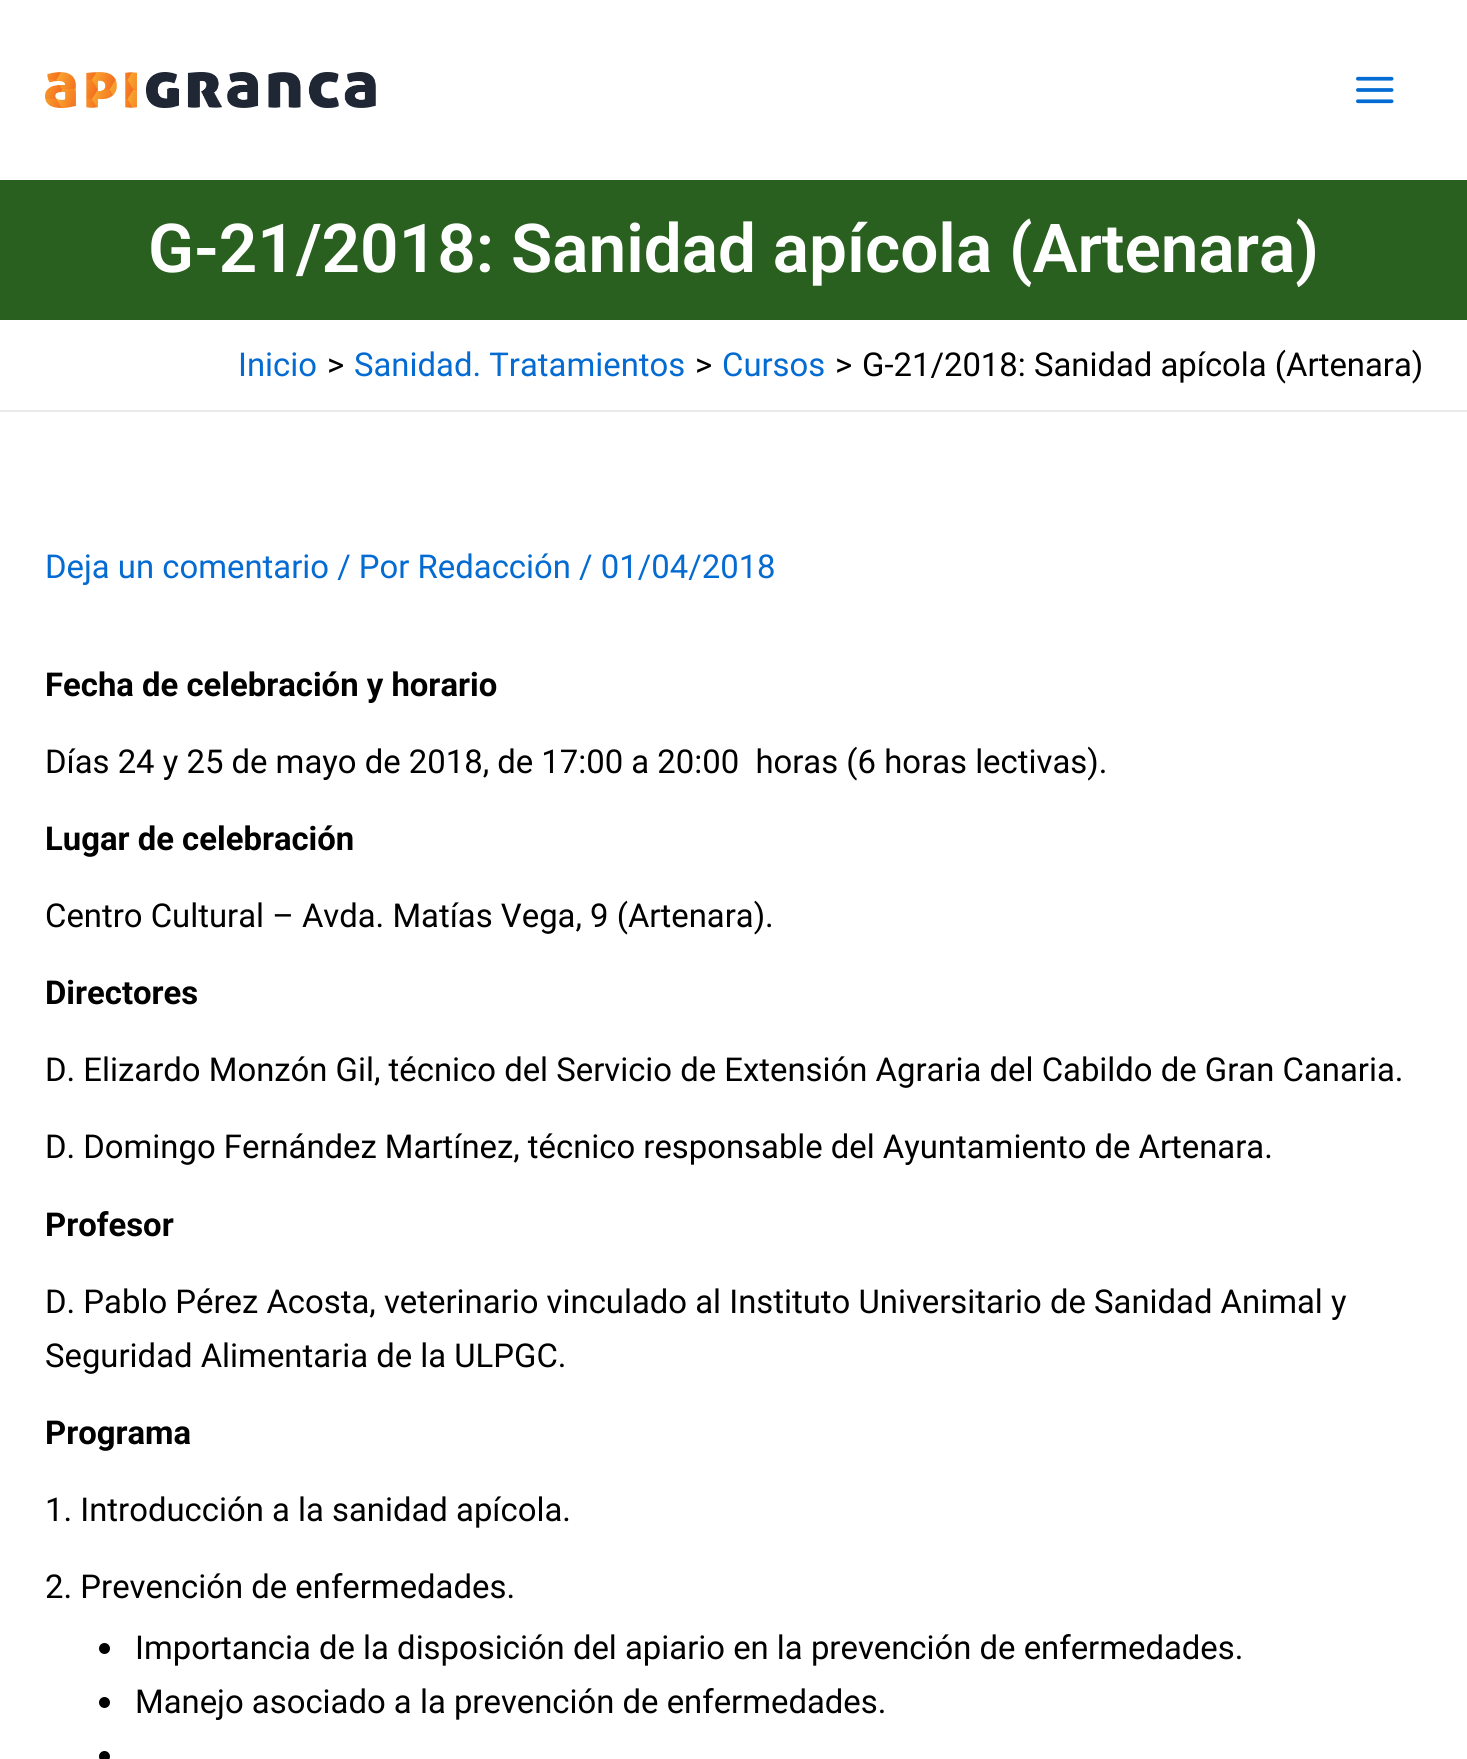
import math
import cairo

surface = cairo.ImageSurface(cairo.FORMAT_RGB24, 1467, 1759)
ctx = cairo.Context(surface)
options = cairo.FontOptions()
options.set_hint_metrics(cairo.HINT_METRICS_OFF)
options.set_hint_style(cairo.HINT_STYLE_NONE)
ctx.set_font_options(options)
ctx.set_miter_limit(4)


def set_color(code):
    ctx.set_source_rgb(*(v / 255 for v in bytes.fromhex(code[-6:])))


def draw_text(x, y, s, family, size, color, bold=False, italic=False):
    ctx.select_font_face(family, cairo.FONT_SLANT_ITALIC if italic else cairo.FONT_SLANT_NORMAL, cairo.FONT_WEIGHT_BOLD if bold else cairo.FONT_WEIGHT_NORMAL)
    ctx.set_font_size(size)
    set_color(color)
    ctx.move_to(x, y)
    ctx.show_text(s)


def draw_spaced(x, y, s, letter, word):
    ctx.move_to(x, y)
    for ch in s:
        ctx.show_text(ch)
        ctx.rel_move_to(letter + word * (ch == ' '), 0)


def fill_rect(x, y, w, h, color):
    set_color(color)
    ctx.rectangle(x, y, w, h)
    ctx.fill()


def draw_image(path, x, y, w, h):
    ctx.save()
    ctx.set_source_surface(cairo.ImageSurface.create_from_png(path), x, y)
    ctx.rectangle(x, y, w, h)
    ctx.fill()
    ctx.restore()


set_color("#ffffff")
ctx.paint()
draw_image("assets/img1.png", 45, 72, 331, 36)
draw_image("assets/img2.png", 1356, 76, 38, 28)
fill_rect(0, 180, 1467, 140, "#29601f")
draw_text(148, 272, "G-21/2018: Sanidad apícola (Artenara)", "Roboto SemiBold", 67.5, "#ffffff")
fill_rect(0, 410, 1467, 2, "#eaeaea")
draw_text(238, 376, "Inicio", "Roboto", 32.85, "#046bd2")
draw_text(327, 376, ">", "Roboto", 32.85, "#000000")
draw_text(354, 376, "Sanidad. Tratamientos", "Roboto", 32.85, "#046bd2")
draw_text(695, 376, ">", "Roboto", 32.85, "#000000")
draw_text(722, 376, "Cursos", "Roboto", 32.85, "#046bd2")
draw_text(835, 376, ">", "Roboto", 32.85, "#000000")
draw_text(862, 376, "G-21/2018: Sanidad apícola (Artenara)", "Roboto", 32.85, "#000000")
draw_text(45, 578, "Deja un comentario / Por Redacción / 01/04/2018", "Roboto", 32.85, "#046bd2")
draw_text(45, 696, "Fecha de celebración y horario", "Roboto", 32.85, "#000000", bold=True)
draw_text(45, 773, "Días 24 y 25 de mayo de 2018, de 17:00 a 20:00  horas (6 horas lectivas).", "Roboto", 32.85, "#000000")
draw_text(45, 850, "Lugar de celebración", "Roboto", 32.85, "#000000", bold=True)
draw_text(45, 927, "Centro Cultural – Avda. Matías Vega, 9 (Artenara).", "Roboto", 32.85, "#000000")
draw_text(45, 1004, "Directores", "Roboto", 32.85, "#000000", bold=True)
draw_text(45, 1081, "D. Elizardo Monzón Gil, técnico del Servicio de Extensión Agraria del Cabildo de Gran Canaria.", "Roboto", 32.85, "#000000")
draw_spaced(45, 1158, "D. Domingo Fernández Martínez, técnico responsable del Ayuntamiento de Artenara.", 0, -0.1)
draw_text(45, 1236, "Profesor", "Roboto", 32.85, "#000000", bold=True)
draw_text(45, 1313, "D. Pablo Pérez Acosta, veterinario vinculado al Instituto Universitario de Sanidad Animal y", "Roboto", 32.85, "#000000")
draw_text(45, 1367, "Seguridad Alimentaria de la ULPGC.", "Roboto", 32.85, "#000000")
draw_text(45, 1444, "Programa", "Roboto", 32.85, "#000000", bold=True)
draw_text(45, 1521, "1. Introducción a la sanidad apícola.", "Roboto", 32.85, "#000000")
draw_text(45, 1598, "2. Prevención de enfermedades.", "Roboto", 32.85, "#000000")
ctx.new_path()
ctx.arc(104.5, 1648.5, 5.5, 0, 2 * math.pi)
ctx.fill()
draw_text(135, 1659, "Importancia de la disposición del apiario en la prevención de enfermedades.", "Roboto", 32.85, "#000000")
ctx.new_path()
ctx.arc(104.5, 1702.5, 5.5, 0, 2 * math.pi)
ctx.fill()
draw_text(135, 1713, "Manejo asociado a la prevención de enfermedades.", "Roboto", 32.85, "#000000")
ctx.new_path()
ctx.arc(104.5, 1756.5, 5.5, 0, 2 * math.pi)
ctx.fill()
surface.write_to_png("output.png")
